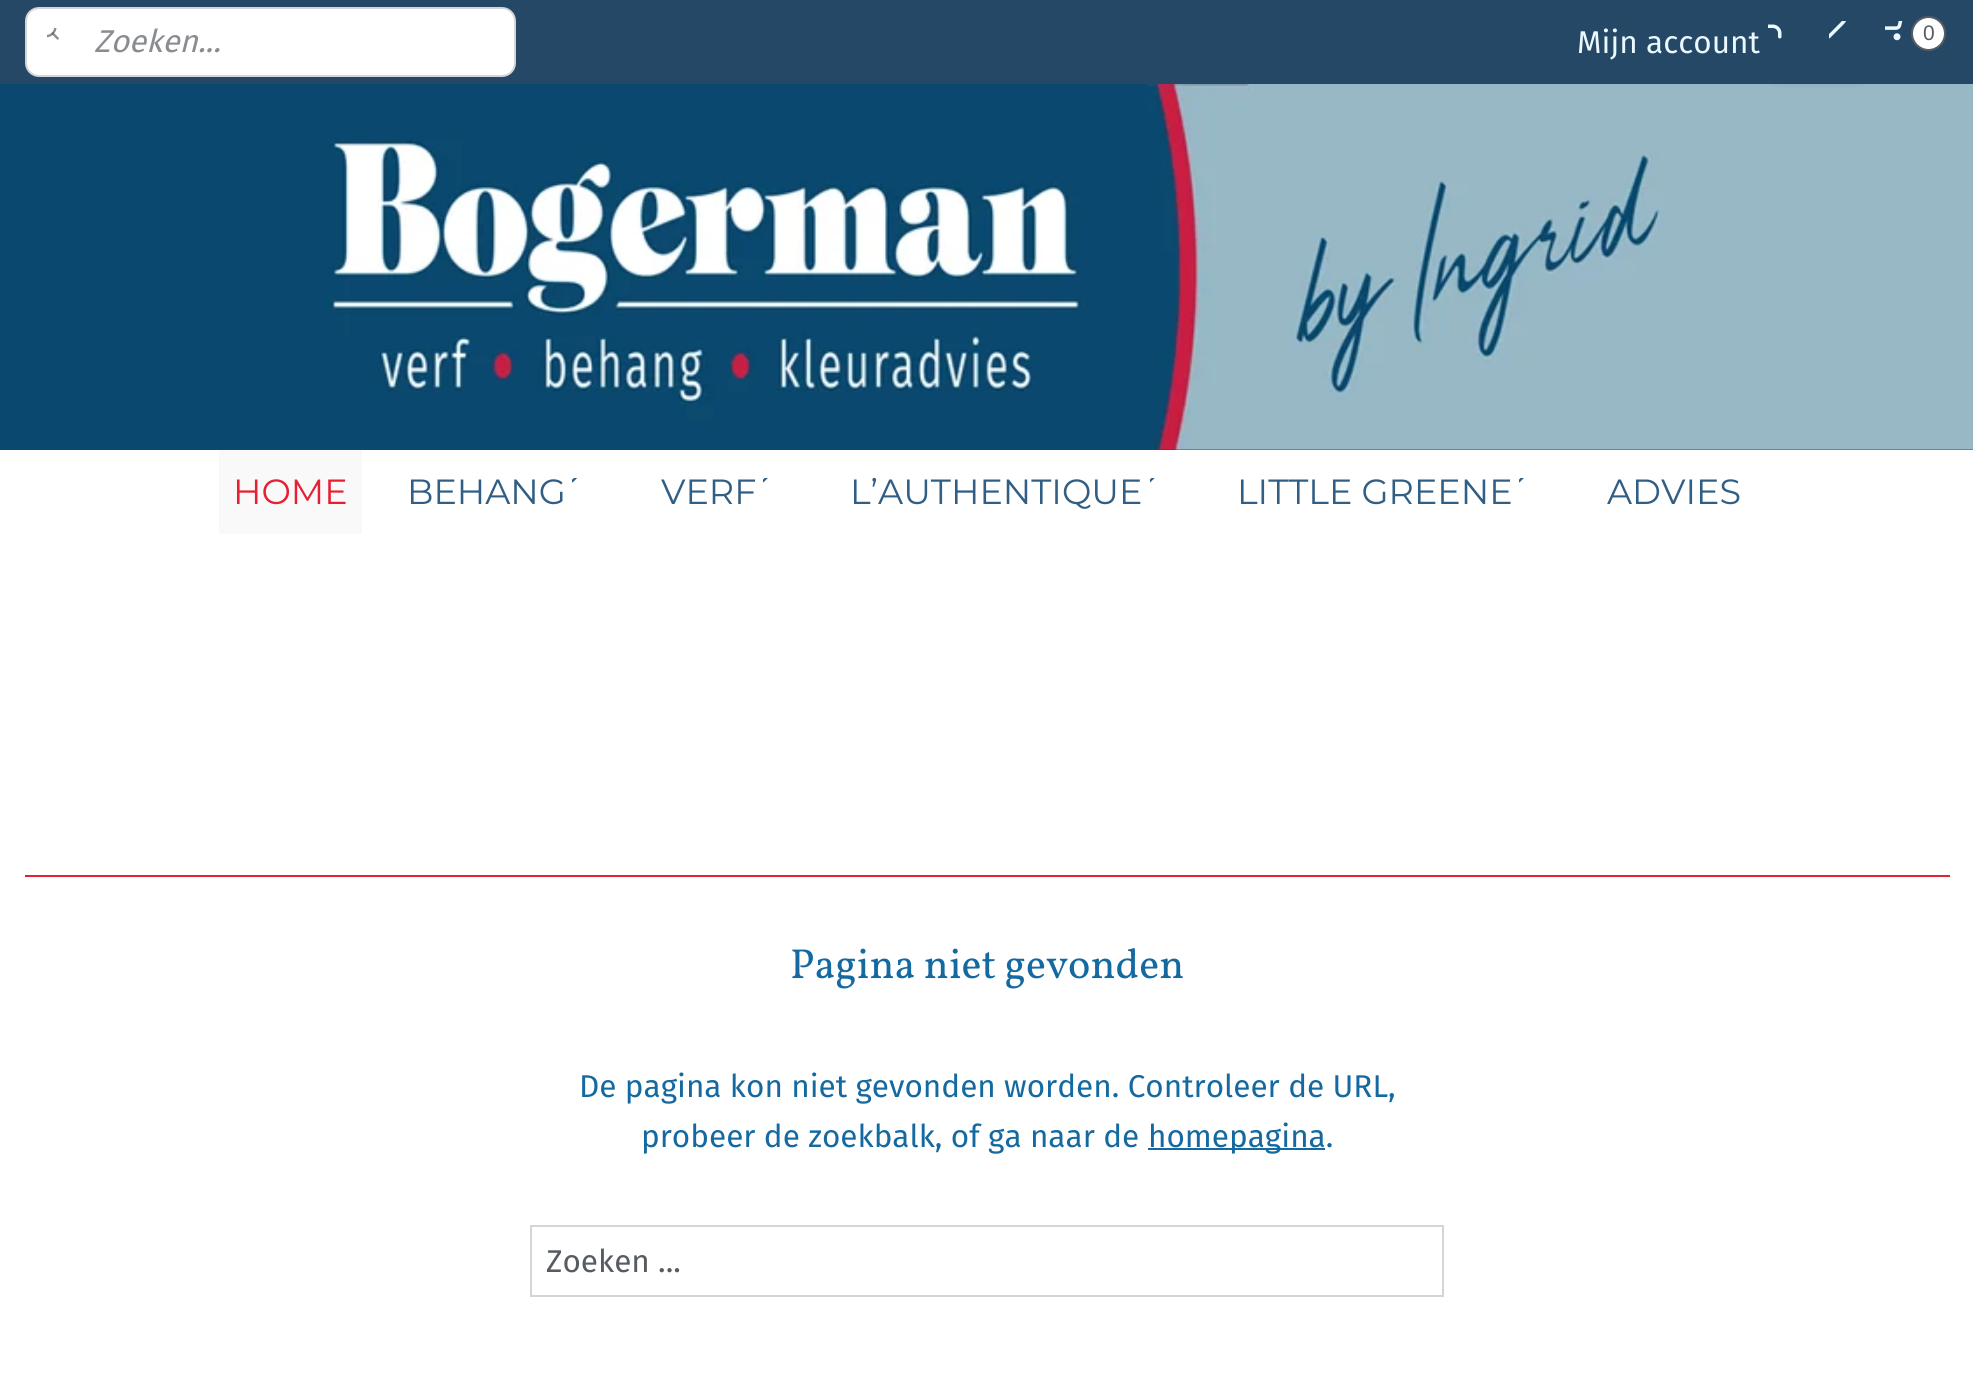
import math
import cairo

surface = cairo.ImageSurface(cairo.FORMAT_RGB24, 1973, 1379)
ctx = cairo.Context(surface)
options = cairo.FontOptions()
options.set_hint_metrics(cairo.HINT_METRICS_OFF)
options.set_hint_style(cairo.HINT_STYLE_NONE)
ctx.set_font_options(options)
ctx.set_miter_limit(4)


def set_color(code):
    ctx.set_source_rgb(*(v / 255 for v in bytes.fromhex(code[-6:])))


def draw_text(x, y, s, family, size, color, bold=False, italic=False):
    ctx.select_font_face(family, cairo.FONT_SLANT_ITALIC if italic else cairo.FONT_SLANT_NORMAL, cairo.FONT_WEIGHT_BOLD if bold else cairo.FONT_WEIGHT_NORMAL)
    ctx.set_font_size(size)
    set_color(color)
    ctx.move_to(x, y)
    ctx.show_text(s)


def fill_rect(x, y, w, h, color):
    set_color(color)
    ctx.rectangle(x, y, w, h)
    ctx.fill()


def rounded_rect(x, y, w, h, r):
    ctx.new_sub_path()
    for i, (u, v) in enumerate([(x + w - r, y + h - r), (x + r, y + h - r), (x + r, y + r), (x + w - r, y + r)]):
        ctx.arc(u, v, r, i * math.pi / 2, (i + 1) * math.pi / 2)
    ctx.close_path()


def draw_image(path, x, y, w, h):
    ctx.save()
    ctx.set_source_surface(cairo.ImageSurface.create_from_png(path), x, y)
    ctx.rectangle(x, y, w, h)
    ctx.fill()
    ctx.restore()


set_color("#ffffff")
ctx.paint()
fill_rect(0, 0, 1973, 450, "#254866")
set_color("#ffffff")
rounded_rect(26, 8, 489, 68, 13)
ctx.fill_preserve()
set_color("#d3d5d9")
ctx.stroke()
draw_image("assets/img1.png", 47, 28, 12, 12)
draw_text(94, 52, "Zoeken...", "Fira Sans", 31.5, "#898c91", italic=True)
draw_text(1577, 53, "Mijn account", "Fira Sans", 31.5, "#ebf8fe")
draw_image("assets/img2.png", 1768, 24, 14, 15)
draw_image("assets/img3.png", 1829, 21, 18, 18)
draw_image("assets/img4.png", 1885, 21, 18, 20)
ctx.arc(1928.5, 33.5, 16.5, 0, 2 * math.pi)
set_color("#575b62")
ctx.stroke()
set_color("#ffffff")
ctx.arc(1928.5, 33.5, 15.5, 0, 2 * math.pi)
ctx.fill()
draw_text(1923, 40, "0", "Liberation Sans", 21, "#575b62")
draw_image("assets/img5.png", 0, 84, 1973, 366)
fill_rect(219, 450, 143, 84, "#f9f9f9")
draw_text(233, 504, "HOME", "Montserrat", 35, "#e62034")
draw_text(407, 504, "BEHANG", "Montserrat", 35, "#315e84")
draw_image("assets/img6.png", 572, 478, 5, 5)
draw_text(661, 504, "VERF", "Montserrat", 35, "#315e84")
draw_image("assets/img7.png", 763, 478, 5, 5)
draw_text(850, 504, "L’AUTHENTIQUE", "Montserrat", 35, "#315e84")
draw_image("assets/img8.png", 1150, 478, 5, 5)
draw_text(1237, 504, "LITTLE GREENE", "Montserrat", 35, "#315e84")
draw_image("assets/img7.png", 1519, 478, 5, 5)
draw_text(1607, 504, "ADVIES", "Montserrat", 35, "#315e84")
fill_rect(25, 875, 1925, 2, "#e62034")
draw_text(790, 978, "Pagina niet gevonden", "Vollkorn", 42, "#1469a1")
draw_text(579, 1097, "De pagina kon niet gevonden worden. Controleer de URL,", "Fira Sans", 31.5, "#1469a1")
draw_text(641, 1147, "probeer de zoekbalk, of ga naar de", "Fira Sans", 31.5, "#1469a1")
fill_rect(1148, 1148, 177, 2, "#1469a1")
draw_text(1148, 1147, "homepagina.", "Fira Sans", 31.5, "#1469a1")
ctx.rectangle(531, 1226, 912, 70)
set_color("#d3d5d9")
ctx.stroke()
draw_text(546, 1272, "Zoeken ...", "Fira Sans", 31.5, "#575b62")
surface.write_to_png("output.png")
